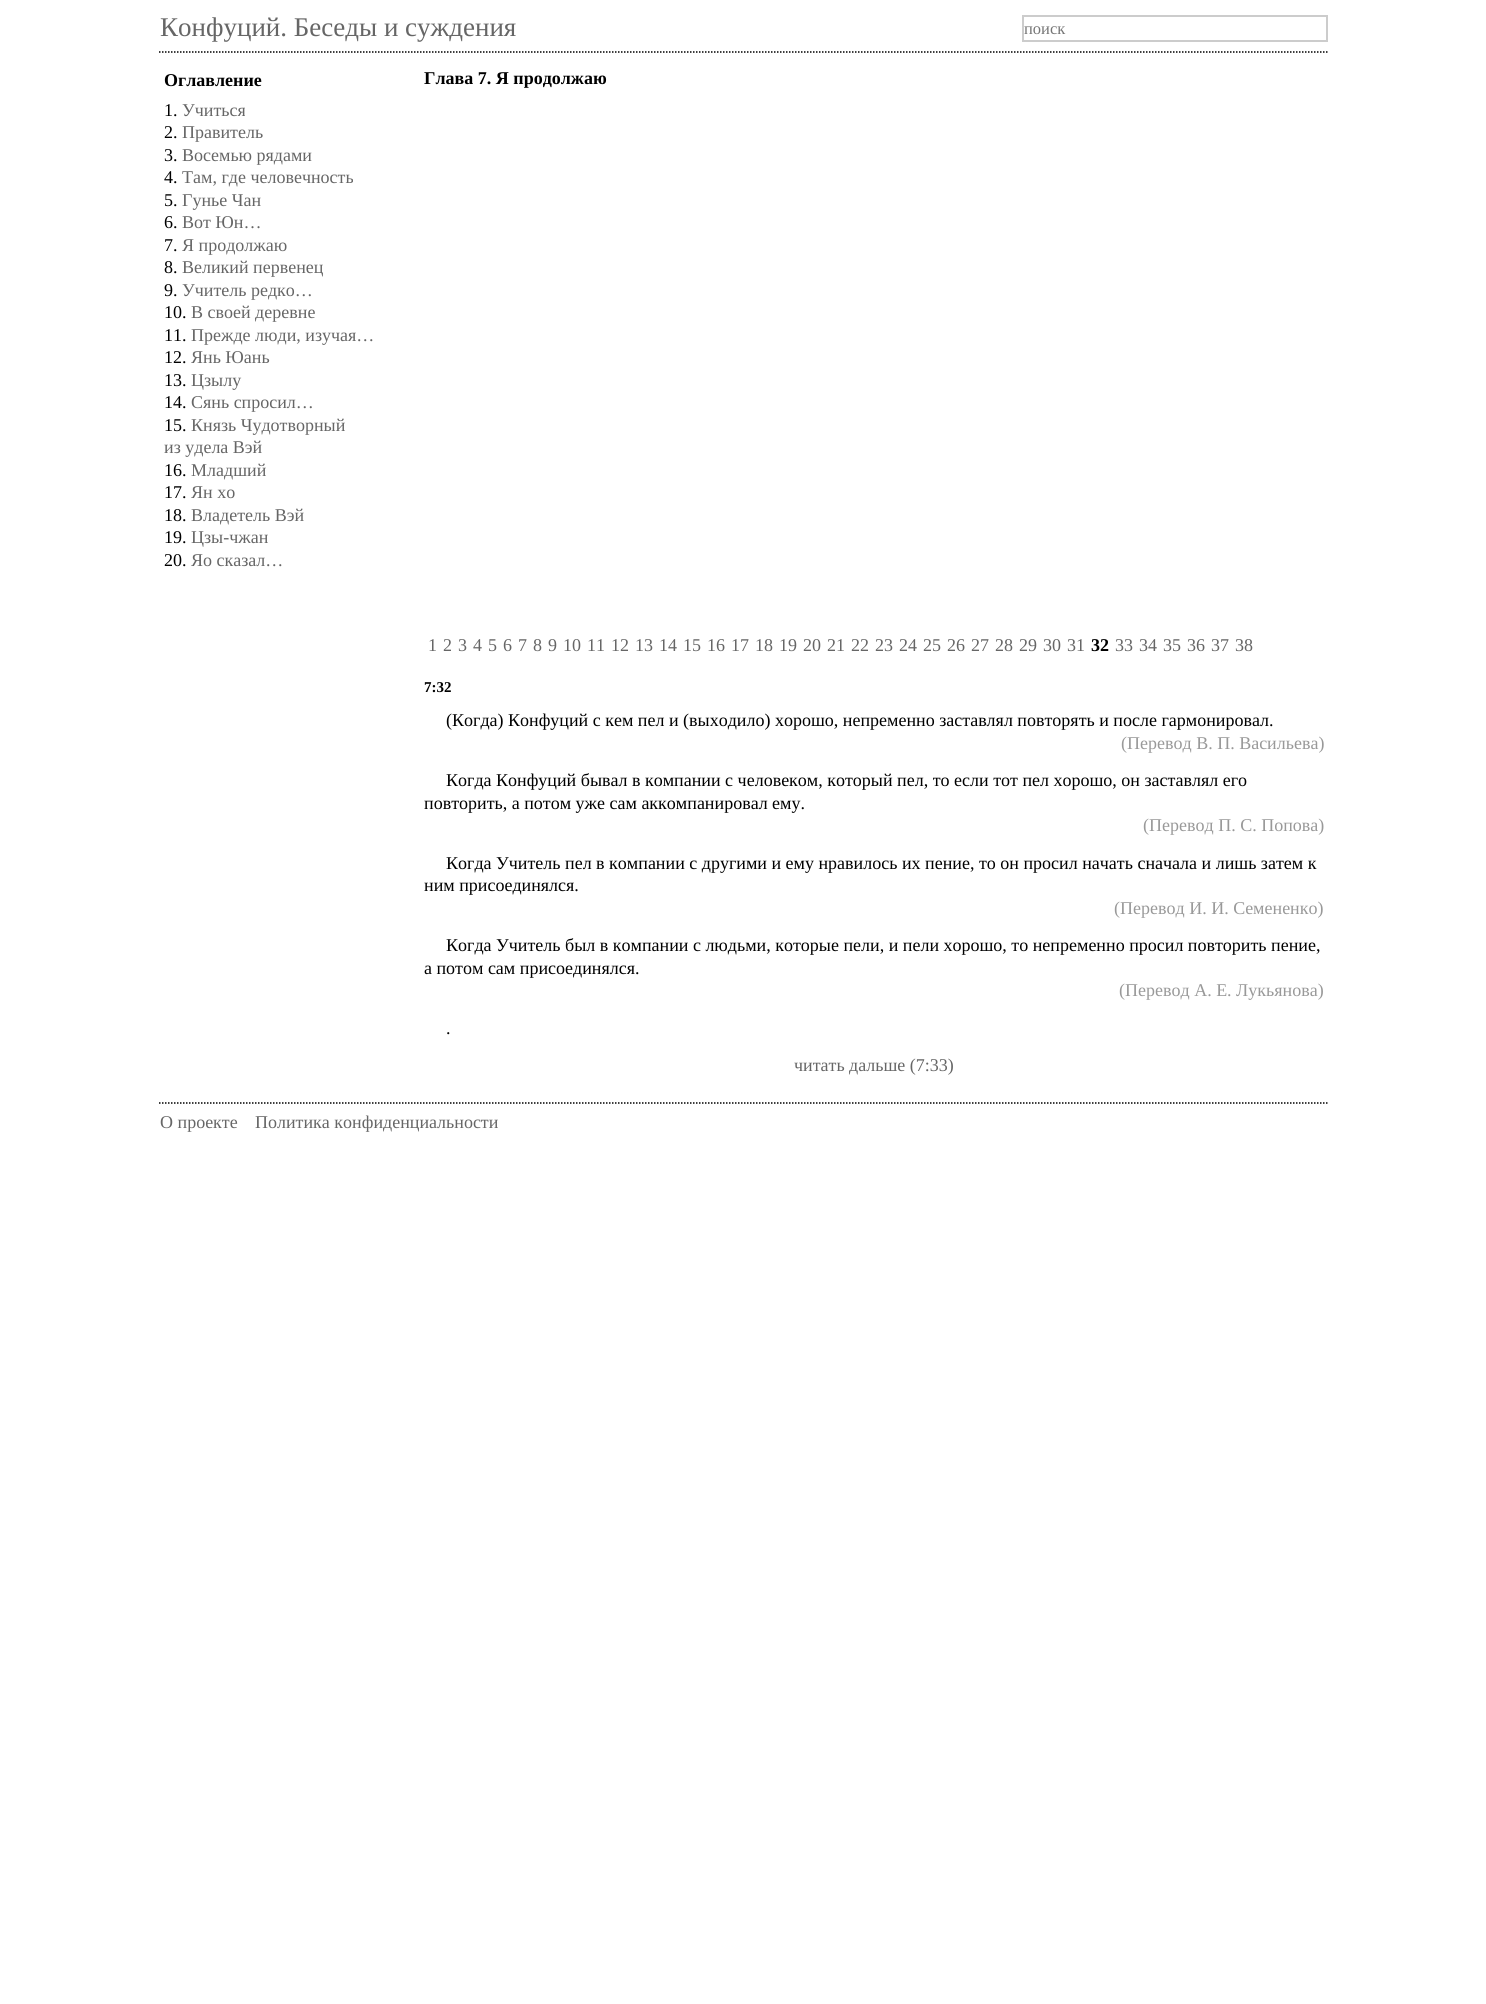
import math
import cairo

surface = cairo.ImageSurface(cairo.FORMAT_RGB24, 1486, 2004)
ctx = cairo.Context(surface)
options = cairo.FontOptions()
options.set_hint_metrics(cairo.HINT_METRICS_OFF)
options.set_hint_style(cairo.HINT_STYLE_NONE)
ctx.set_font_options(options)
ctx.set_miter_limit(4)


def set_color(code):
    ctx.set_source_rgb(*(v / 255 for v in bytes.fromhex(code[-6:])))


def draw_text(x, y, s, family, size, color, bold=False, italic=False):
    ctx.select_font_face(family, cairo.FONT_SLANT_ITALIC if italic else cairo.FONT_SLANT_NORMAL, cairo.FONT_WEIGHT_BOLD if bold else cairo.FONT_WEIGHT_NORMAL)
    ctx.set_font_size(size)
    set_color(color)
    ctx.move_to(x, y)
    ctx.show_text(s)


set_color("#ffffff")
ctx.paint()
ctx.new_path()
ctx.move_to(159, 52)
ctx.line_to(1327.5, 52)
set_color("#000000")
ctx.set_line_width(1.5)
ctx.set_dash([1.5, 1.5])
ctx.stroke()
draw_text(160, 36, "Конфуций. Беседы и суждения", "Liberation Serif", 27, "#666666")
ctx.rectangle(1023, 16, 304, 25)
set_color("#cccccc")
ctx.set_line_width(2)
ctx.set_dash([])
ctx.stroke()
draw_text(1024, 34, "поиск", "Liberation Serif", 16.5, "#757575")
draw_text(164, 86, "Оглавление", "Liberation Serif", 18, "#000000", bold=True)
draw_text(164, 116, "1.", "Liberation Serif", 18, "#000000")
draw_text(182, 116, "Учиться", "Liberation Serif", 18, "#666666")
draw_text(164, 138, "2.", "Liberation Serif", 18, "#000000")
draw_text(182, 138, "Правитель", "Liberation Serif", 18, "#666666")
draw_text(164, 161, "3.", "Liberation Serif", 18, "#000000")
draw_text(182, 161, "Восемью рядами", "Liberation Serif", 18, "#666666")
draw_text(164, 183, "4.", "Liberation Serif", 18, "#000000")
draw_text(182, 183, "Там, где человечность", "Liberation Serif", 18, "#666666")
draw_text(164, 206, "5.", "Liberation Serif", 18, "#000000")
draw_text(182, 206, "Гунье Чан", "Liberation Serif", 18, "#666666")
draw_text(164, 228, "6.", "Liberation Serif", 18, "#000000")
draw_text(182, 228, "Вот Юн…", "Liberation Serif", 18, "#666666")
draw_text(164, 251, "7.", "Liberation Serif", 18, "#000000")
draw_text(182, 251, "Я продолжаю", "Liberation Serif", 18, "#666666")
draw_text(164, 273, "8.", "Liberation Serif", 18, "#000000")
draw_text(182, 273, "Великий первенец", "Liberation Serif", 18, "#666666")
draw_text(164, 296, "9.", "Liberation Serif", 18, "#000000")
draw_text(182, 296, "Учитель редко…", "Liberation Serif", 18, "#666666")
draw_text(164, 318, "10.", "Liberation Serif", 18, "#000000")
draw_text(191, 318, "В своей деревне", "Liberation Serif", 18, "#666666")
draw_text(164, 341, "11.", "Liberation Serif", 18, "#000000")
draw_text(191, 341, "Прежде люди, изучая…", "Liberation Serif", 18, "#666666")
draw_text(164, 363, "12.", "Liberation Serif", 18, "#000000")
draw_text(191, 363, "Янь Юань", "Liberation Serif", 18, "#666666")
draw_text(164, 386, "13.", "Liberation Serif", 18, "#000000")
draw_text(191, 386, "Цзылу", "Liberation Serif", 18, "#666666")
draw_text(164, 408, "14.", "Liberation Serif", 18, "#000000")
draw_text(191, 408, "Сянь спросил…", "Liberation Serif", 18, "#666666")
draw_text(164, 431, "15.", "Liberation Serif", 18, "#000000")
draw_text(191, 431, "Князь Чудотворный", "Liberation Serif", 18, "#666666")
draw_text(164, 453, "из удела Вэй", "Liberation Serif", 18, "#666666")
draw_text(164, 476, "16.", "Liberation Serif", 18, "#000000")
draw_text(191, 476, "Младший", "Liberation Serif", 18, "#666666")
draw_text(164, 498, "17.", "Liberation Serif", 18, "#000000")
draw_text(191, 498, "Ян хо", "Liberation Serif", 18, "#666666")
draw_text(164, 521, "18.", "Liberation Serif", 18, "#000000")
draw_text(191, 521, "Владетель Вэй", "Liberation Serif", 18, "#666666")
draw_text(164, 543, "19.", "Liberation Serif", 18, "#000000")
draw_text(191, 543, "Цзы-чжан", "Liberation Serif", 18, "#666666")
draw_text(164, 566, "20.", "Liberation Serif", 18, "#000000")
draw_text(191, 566, "Яо сказал…", "Liberation Serif", 18, "#666666")
draw_text(424, 84, "Глава 7. Я продолжаю", "Liberation Serif", 18, "#000000", bold=True)
draw_text(428, 651, "1", "Liberation Serif", 18, "#666666")
draw_text(443, 651, "2", "Liberation Serif", 18, "#666666")
draw_text(458, 651, "3", "Liberation Serif", 18, "#666666")
draw_text(473, 651, "4", "Liberation Serif", 18, "#666666")
draw_text(488, 651, "5", "Liberation Serif", 18, "#666666")
draw_text(503, 651, "6", "Liberation Serif", 18, "#666666")
draw_text(518, 651, "7", "Liberation Serif", 18, "#666666")
draw_text(533, 651, "8", "Liberation Serif", 18, "#666666")
draw_text(548, 651, "9", "Liberation Serif", 18, "#666666")
draw_text(563, 651, "10", "Liberation Serif", 18, "#666666")
draw_text(587, 651, "11", "Liberation Serif", 18, "#666666")
draw_text(611, 651, "12", "Liberation Serif", 18, "#666666")
draw_text(635, 651, "13", "Liberation Serif", 18, "#666666")
draw_text(659, 651, "14", "Liberation Serif", 18, "#666666")
draw_text(683, 651, "15", "Liberation Serif", 18, "#666666")
draw_text(707, 651, "16", "Liberation Serif", 18, "#666666")
draw_text(731, 651, "17", "Liberation Serif", 18, "#666666")
draw_text(755, 651, "18", "Liberation Serif", 18, "#666666")
draw_text(779, 651, "19", "Liberation Serif", 18, "#666666")
draw_text(803, 651, "20", "Liberation Serif", 18, "#666666")
draw_text(827, 651, "21", "Liberation Serif", 18, "#666666")
draw_text(851, 651, "22", "Liberation Serif", 18, "#666666")
draw_text(875, 651, "23", "Liberation Serif", 18, "#666666")
draw_text(899, 651, "24", "Liberation Serif", 18, "#666666")
draw_text(923, 651, "25", "Liberation Serif", 18, "#666666")
draw_text(947, 651, "26", "Liberation Serif", 18, "#666666")
draw_text(971, 651, "27", "Liberation Serif", 18, "#666666")
draw_text(995, 651, "28", "Liberation Serif", 18, "#666666")
draw_text(1019, 651, "29", "Liberation Serif", 18, "#666666")
draw_text(1043, 651, "30", "Liberation Serif", 18, "#666666")
draw_text(1067, 651, "31", "Liberation Serif", 18, "#666666")
draw_text(1091, 651, "32", "Liberation Serif", 18, "#000000", bold=True)
draw_text(1115, 651, "33", "Liberation Serif", 18, "#666666")
draw_text(1139, 651, "34", "Liberation Serif", 18, "#666666")
draw_text(1163, 651, "35", "Liberation Serif", 18, "#666666")
draw_text(1187, 651, "36", "Liberation Serif", 18, "#666666")
draw_text(1211, 651, "37", "Liberation Serif", 18, "#666666")
draw_text(1235, 651, "38", "Liberation Serif", 18, "#666666")
draw_text(424, 692, "7:32", "Liberation Serif", 15, "#000000", bold=True)
draw_text(446, 726, "(Когда) Конфуций с кем пел и (выходило) хорошо, непременно заставлял повторять и после гармонировал.", "Liberation Serif", 18, "#000000")
draw_text(1121, 749, "(Перевод В. П. Васильева)", "Liberation Serif", 18, "#999999")
draw_text(446, 786, "Когда Конфуций бывал в компании с человеком, который пел, то если тот пел хорошо, он заставлял его", "Liberation Serif", 18, "#000000")
draw_text(424, 809, "повторить, а потом уже сам аккомпанировал ему.", "Liberation Serif", 18, "#000000")
draw_text(1143, 831, "(Перевод П. С. Попова)", "Liberation Serif", 18, "#999999")
draw_text(446, 869, "Когда Учитель пел в компании с другими и ему нравилось их пение, то он просил начать сначала и лишь затем к", "Liberation Serif", 18, "#000000")
draw_text(424, 891, "ним присоединялся.", "Liberation Serif", 18, "#000000")
draw_text(1114, 914, "(Перевод И. И. Семененко)", "Liberation Serif", 18, "#999999")
draw_text(446, 951, "Когда Учитель был в компании с людьми, которые пели, и пели хорошо, то непременно просил повторить пение,", "Liberation Serif", 18, "#000000")
draw_text(424, 974, "а потом сам присоединялся.", "Liberation Serif", 18, "#000000")
draw_text(1119, 996, "(Перевод А. Е. Лукьянова)", "Liberation Serif", 18, "#999999")
draw_text(446, 1034, ".", "Liberation Serif", 18, "#000000")
draw_text(794, 1071, "читать дальше (7:33)", "Liberation Serif", 18, "#666666")
ctx.new_path()
ctx.move_to(159, 1103)
ctx.line_to(1327.5, 1103)
set_color("#000000")
ctx.set_line_width(1.5)
ctx.set_dash([1.5, 1.5])
ctx.stroke()
draw_text(160, 1128, "О проекте", "Liberation Serif", 18, "#666666")
draw_text(255, 1128, "Политика конфиденциальности", "Liberation Serif", 18, "#666666")
surface.write_to_png("output.png")
